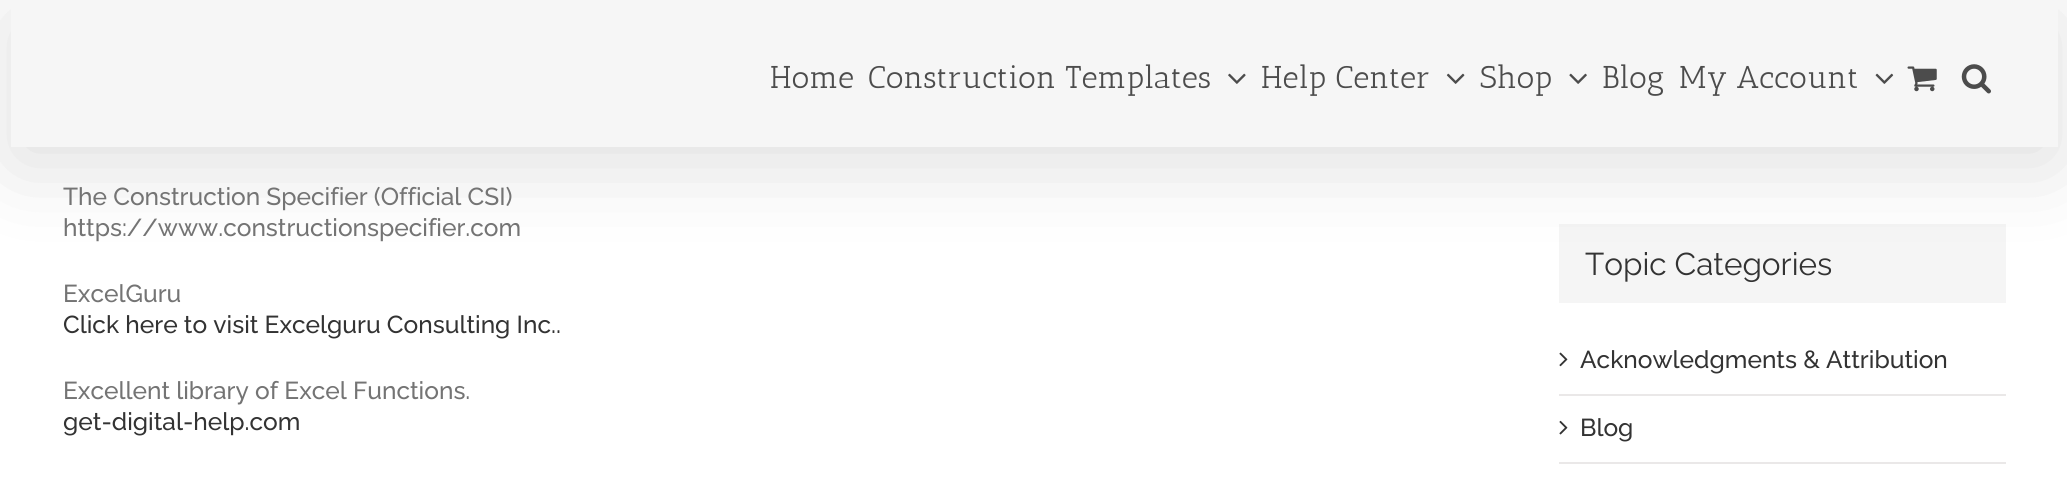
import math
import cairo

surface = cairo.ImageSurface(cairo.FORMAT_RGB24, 2067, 485)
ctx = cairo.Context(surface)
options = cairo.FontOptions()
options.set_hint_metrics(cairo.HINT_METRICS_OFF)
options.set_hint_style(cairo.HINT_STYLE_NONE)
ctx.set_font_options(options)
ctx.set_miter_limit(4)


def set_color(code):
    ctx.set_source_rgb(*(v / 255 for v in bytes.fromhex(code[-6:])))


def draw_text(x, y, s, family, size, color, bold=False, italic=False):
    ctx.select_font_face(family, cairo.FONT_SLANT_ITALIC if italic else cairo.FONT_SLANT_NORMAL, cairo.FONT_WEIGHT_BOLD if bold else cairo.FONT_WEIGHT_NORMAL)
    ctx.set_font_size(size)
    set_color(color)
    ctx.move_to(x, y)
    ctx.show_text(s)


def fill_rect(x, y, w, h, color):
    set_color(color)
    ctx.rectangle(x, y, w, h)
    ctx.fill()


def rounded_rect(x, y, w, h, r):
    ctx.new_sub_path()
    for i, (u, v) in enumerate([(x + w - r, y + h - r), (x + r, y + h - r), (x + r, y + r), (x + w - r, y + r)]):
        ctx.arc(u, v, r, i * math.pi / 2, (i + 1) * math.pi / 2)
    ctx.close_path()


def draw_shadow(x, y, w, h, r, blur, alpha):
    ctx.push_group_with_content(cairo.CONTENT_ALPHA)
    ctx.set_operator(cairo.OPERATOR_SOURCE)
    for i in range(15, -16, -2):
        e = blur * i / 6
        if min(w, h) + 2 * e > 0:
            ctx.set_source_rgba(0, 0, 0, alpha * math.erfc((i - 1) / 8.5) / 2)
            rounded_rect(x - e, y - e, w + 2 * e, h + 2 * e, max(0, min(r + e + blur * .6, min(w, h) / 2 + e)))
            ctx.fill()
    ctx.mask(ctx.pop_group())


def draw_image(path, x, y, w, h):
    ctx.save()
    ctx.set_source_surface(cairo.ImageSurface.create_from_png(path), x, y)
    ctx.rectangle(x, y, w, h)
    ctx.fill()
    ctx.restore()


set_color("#ffffff")
ctx.paint()
fill_rect(1559, 224, 447, 79, "#f5f5f5")
set_color("#000000")
draw_shadow(14, 21, 2041, 140, 0, 44, 0.14)
fill_rect(11, 0, 2047, 147, "#f6f6f6")
draw_text(770, 88, "Home", "Antic Slab", 31.5, "#4c4c4c")
draw_text(868, 88, "Construction Templates", "Antic Slab", 31.5, "#4c4c4c")
draw_image("assets/img1.png", 1228, 73, 18, 11)
draw_text(1261, 88, "Help Center", "Antic Slab", 31.5, "#4c4c4c")
draw_image("assets/img2.png", 1446, 73, 19, 11)
draw_text(1480, 88, "Shop", "Antic Slab", 31.5, "#4c4c4c")
draw_image("assets/img3.png", 1569, 73, 18, 11)
draw_text(1602, 88, "Blog", "Antic Slab", 31.5, "#4c4c4c")
draw_text(1679, 88, "My Account", "Antic Slab", 31.5, "#4c4c4c")
draw_image("assets/img4.png", 1875, 73, 19, 11)
draw_image("assets/img5.png", 1907, 66, 30, 26)
draw_image("assets/img6.png", 1961, 64, 30, 30)
draw_text(63, 205, "The Construction Specifier (Official CSI)", "Raleway Medium", 24.5, "#747474")
draw_text(63, 236, "https://www.constructionspecifier.com", "Raleway Medium", 24.5, "#747474")
draw_text(63, 302, "ExcelGuru", "Raleway Medium", 24.5, "#747474")
draw_text(63, 333, "Click here to visit Excelguru Consulting Inc..", "Raleway Medium", 24.5, "#333333")
draw_text(63, 399, "Excellent library of Excel Functions.", "Raleway Medium", 24.5, "#747474")
draw_text(63, 430, "get-digital-help.com", "Raleway Medium", 24.5, "#333333")
draw_text(1585, 275, "Topic Categories", "Raleway", 31.5, "#333333")
fill_rect(1559, 394, 447, 2, "#eae8e8")
draw_image("assets/img7.png", 1559, 352, 9, 15)
draw_text(1580, 368, "Acknowledgments & Attribution", "Raleway Medium", 24.5, "#333333")
fill_rect(1559, 462, 447, 2, "#eae8e8")
draw_image("assets/img8.png", 1559, 420, 9, 15)
draw_text(1580, 436, "Blog", "Raleway Medium", 24.5, "#333333")
surface.write_to_png("output.png")
